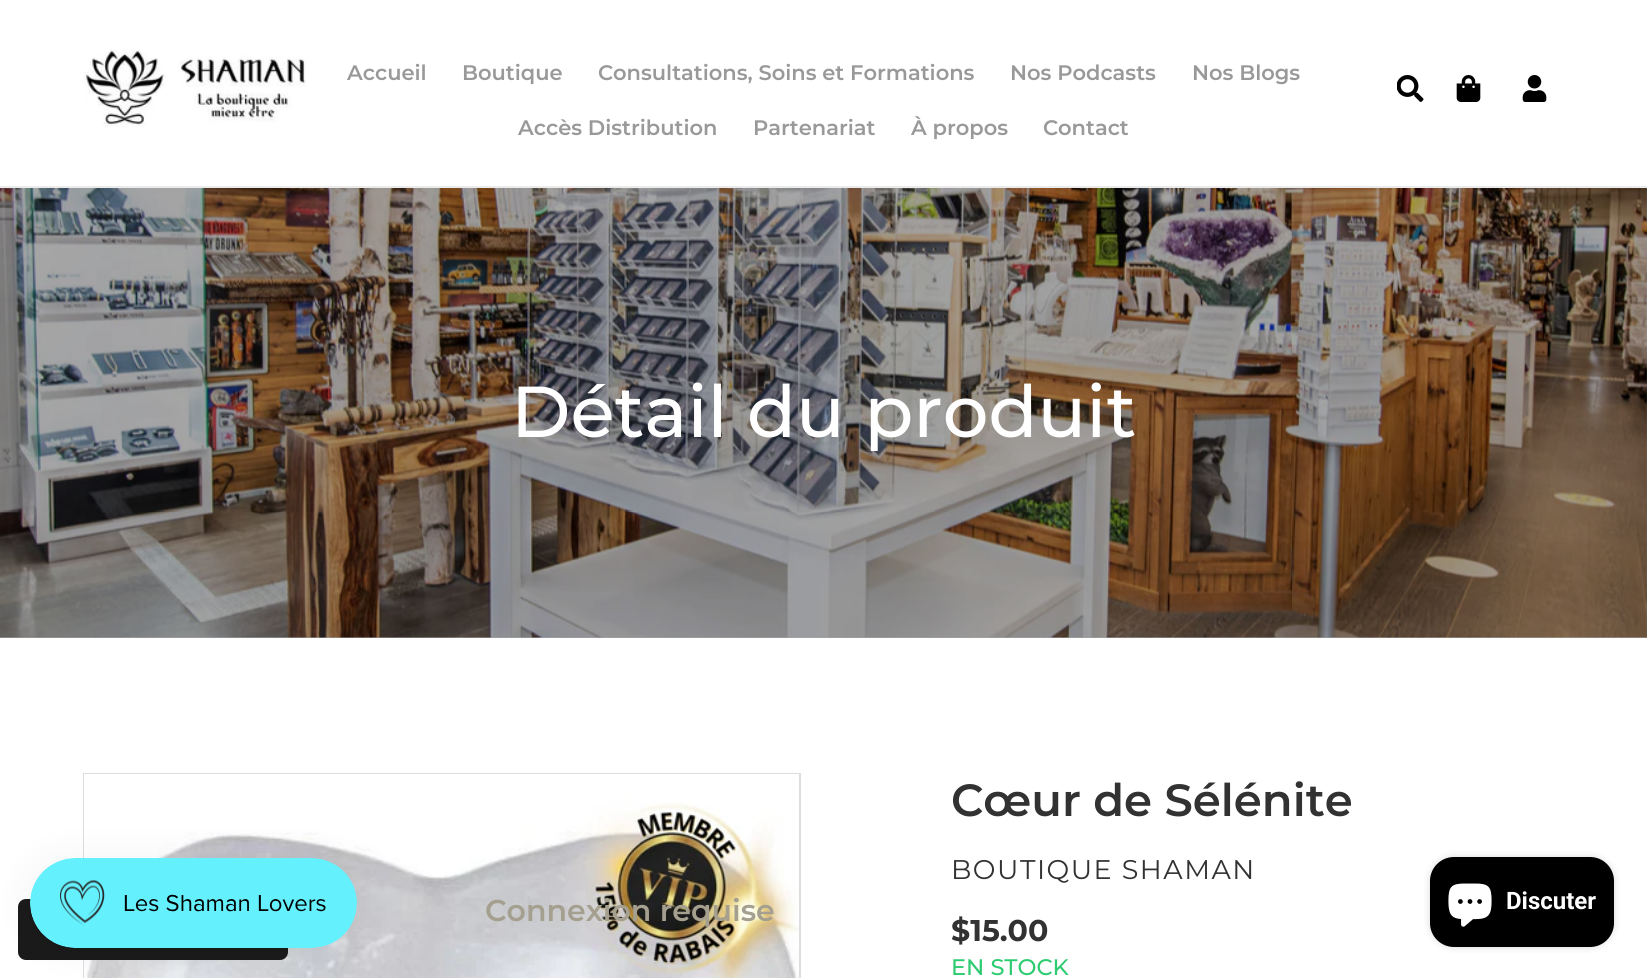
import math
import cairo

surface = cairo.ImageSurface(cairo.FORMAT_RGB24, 1647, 978)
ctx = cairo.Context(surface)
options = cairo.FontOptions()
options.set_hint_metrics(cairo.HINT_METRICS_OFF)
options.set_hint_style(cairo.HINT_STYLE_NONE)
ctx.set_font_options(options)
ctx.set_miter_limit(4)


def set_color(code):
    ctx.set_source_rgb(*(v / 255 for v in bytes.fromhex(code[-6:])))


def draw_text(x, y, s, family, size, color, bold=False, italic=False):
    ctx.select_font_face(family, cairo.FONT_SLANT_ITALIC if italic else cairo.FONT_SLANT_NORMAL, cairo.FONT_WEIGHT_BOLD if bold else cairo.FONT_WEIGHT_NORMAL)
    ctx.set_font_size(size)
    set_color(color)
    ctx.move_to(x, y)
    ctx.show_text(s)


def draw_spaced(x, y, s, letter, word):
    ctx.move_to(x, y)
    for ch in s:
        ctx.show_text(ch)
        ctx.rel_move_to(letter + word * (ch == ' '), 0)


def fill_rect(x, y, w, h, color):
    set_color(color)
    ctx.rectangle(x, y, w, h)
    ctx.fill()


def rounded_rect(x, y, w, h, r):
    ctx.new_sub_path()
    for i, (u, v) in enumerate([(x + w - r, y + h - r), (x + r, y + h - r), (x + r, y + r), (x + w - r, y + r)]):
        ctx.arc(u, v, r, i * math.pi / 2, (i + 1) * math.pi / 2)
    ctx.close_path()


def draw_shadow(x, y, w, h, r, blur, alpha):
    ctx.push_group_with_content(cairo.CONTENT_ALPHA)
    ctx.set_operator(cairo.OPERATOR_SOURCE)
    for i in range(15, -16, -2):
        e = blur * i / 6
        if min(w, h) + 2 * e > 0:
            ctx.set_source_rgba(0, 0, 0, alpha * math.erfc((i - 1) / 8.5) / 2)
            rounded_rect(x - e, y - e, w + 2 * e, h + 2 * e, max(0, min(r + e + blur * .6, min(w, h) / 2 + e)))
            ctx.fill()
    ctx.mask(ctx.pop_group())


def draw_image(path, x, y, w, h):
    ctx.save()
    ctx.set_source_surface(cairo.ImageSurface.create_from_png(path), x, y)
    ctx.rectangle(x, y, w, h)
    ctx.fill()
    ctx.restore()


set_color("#ffffff")
ctx.paint()
fill_rect(0, 188, 1647, 450, "#a6a6a6")
fill_rect(0, 186, 1647, 2, "#ebebeb")
draw_image("assets/img1.png", 83, 49, 223, 78)
draw_text(347, 80, "Accueil", "Montserrat SemiBold", 21, "#999999")
draw_text(462, 80, "Boutique", "Montserrat SemiBold", 21, "#999999")
draw_text(598, 80, "Consultations, Soins et Formations", "Montserrat SemiBold", 21, "#999999")
draw_text(1010, 80, "Nos Podcasts", "Montserrat SemiBold", 21, "#999999")
draw_text(1192, 80, "Nos Blogs", "Montserrat SemiBold", 21, "#999999")
draw_text(518, 135, "Accès Distribution", "Montserrat SemiBold", 21, "#999999")
draw_text(753, 135, "Partenariat", "Montserrat SemiBold", 21, "#999999")
draw_text(911, 135, "À propos", "Montserrat SemiBold", 21, "#999999")
draw_text(1043, 135, "Contact", "Montserrat SemiBold", 21, "#999999")
draw_image("assets/img2.png", 1397, 75, 27, 27)
draw_image("assets/img3.png", 1456, 75, 25, 27)
draw_image("assets/img4.png", 1522, 75, 25, 27)
ctx.rectangle(84, 774, 716, 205)
set_color("#dddddd")
ctx.stroke()
draw_image("assets/img7.png", 84, 774, 715, 204)
set_color("#1a1a1a")
rounded_rect(18, 899, 270, 61, 8)
ctx.fill()
set_color("#000000")
draw_shadow(30, 858, 327, 90, 45, 19, 0.05)
draw_image("assets/img5.png", 30, 858, 327, 90)
draw_image("assets/img6.png", 0, 188, 1647, 450)
draw_text(511, 437, "Détail du produit", "Montserrat Medium", 72, "#ffffff")
draw_text(951, 816, "Cœur de Sélénite", "Montserrat SemiBold", 45, "#333232")
ctx.select_font_face("Montserrat")
ctx.set_font_size(27)
draw_spaced(951, 879, "BOUTIQUE SHAMAN", 1.5, 0)
draw_text(951, 941, "$15.00", "Montserrat", 30, "#333232", bold=True)
draw_text(951, 975, "EN STOCK", "Montserrat Medium", 22.5, "#2ecc71")
set_color("#000000")
draw_shadow(1430, 857, 184, 90, 24, 4, 0.15)
set_color("#000000")
rounded_rect(1430, 857, 184, 90, 24)
ctx.fill()
draw_image("assets/img8.png", 1448, 883, 44, 44)
draw_text(1506, 909, "Discuter", "Roboto", 24, "#ffffff", bold=True)
draw_text(485, 921, "Connexion requise", "Montserrat SemiBold", 30, "#a49f8f")
surface.write_to_png("output.png")
